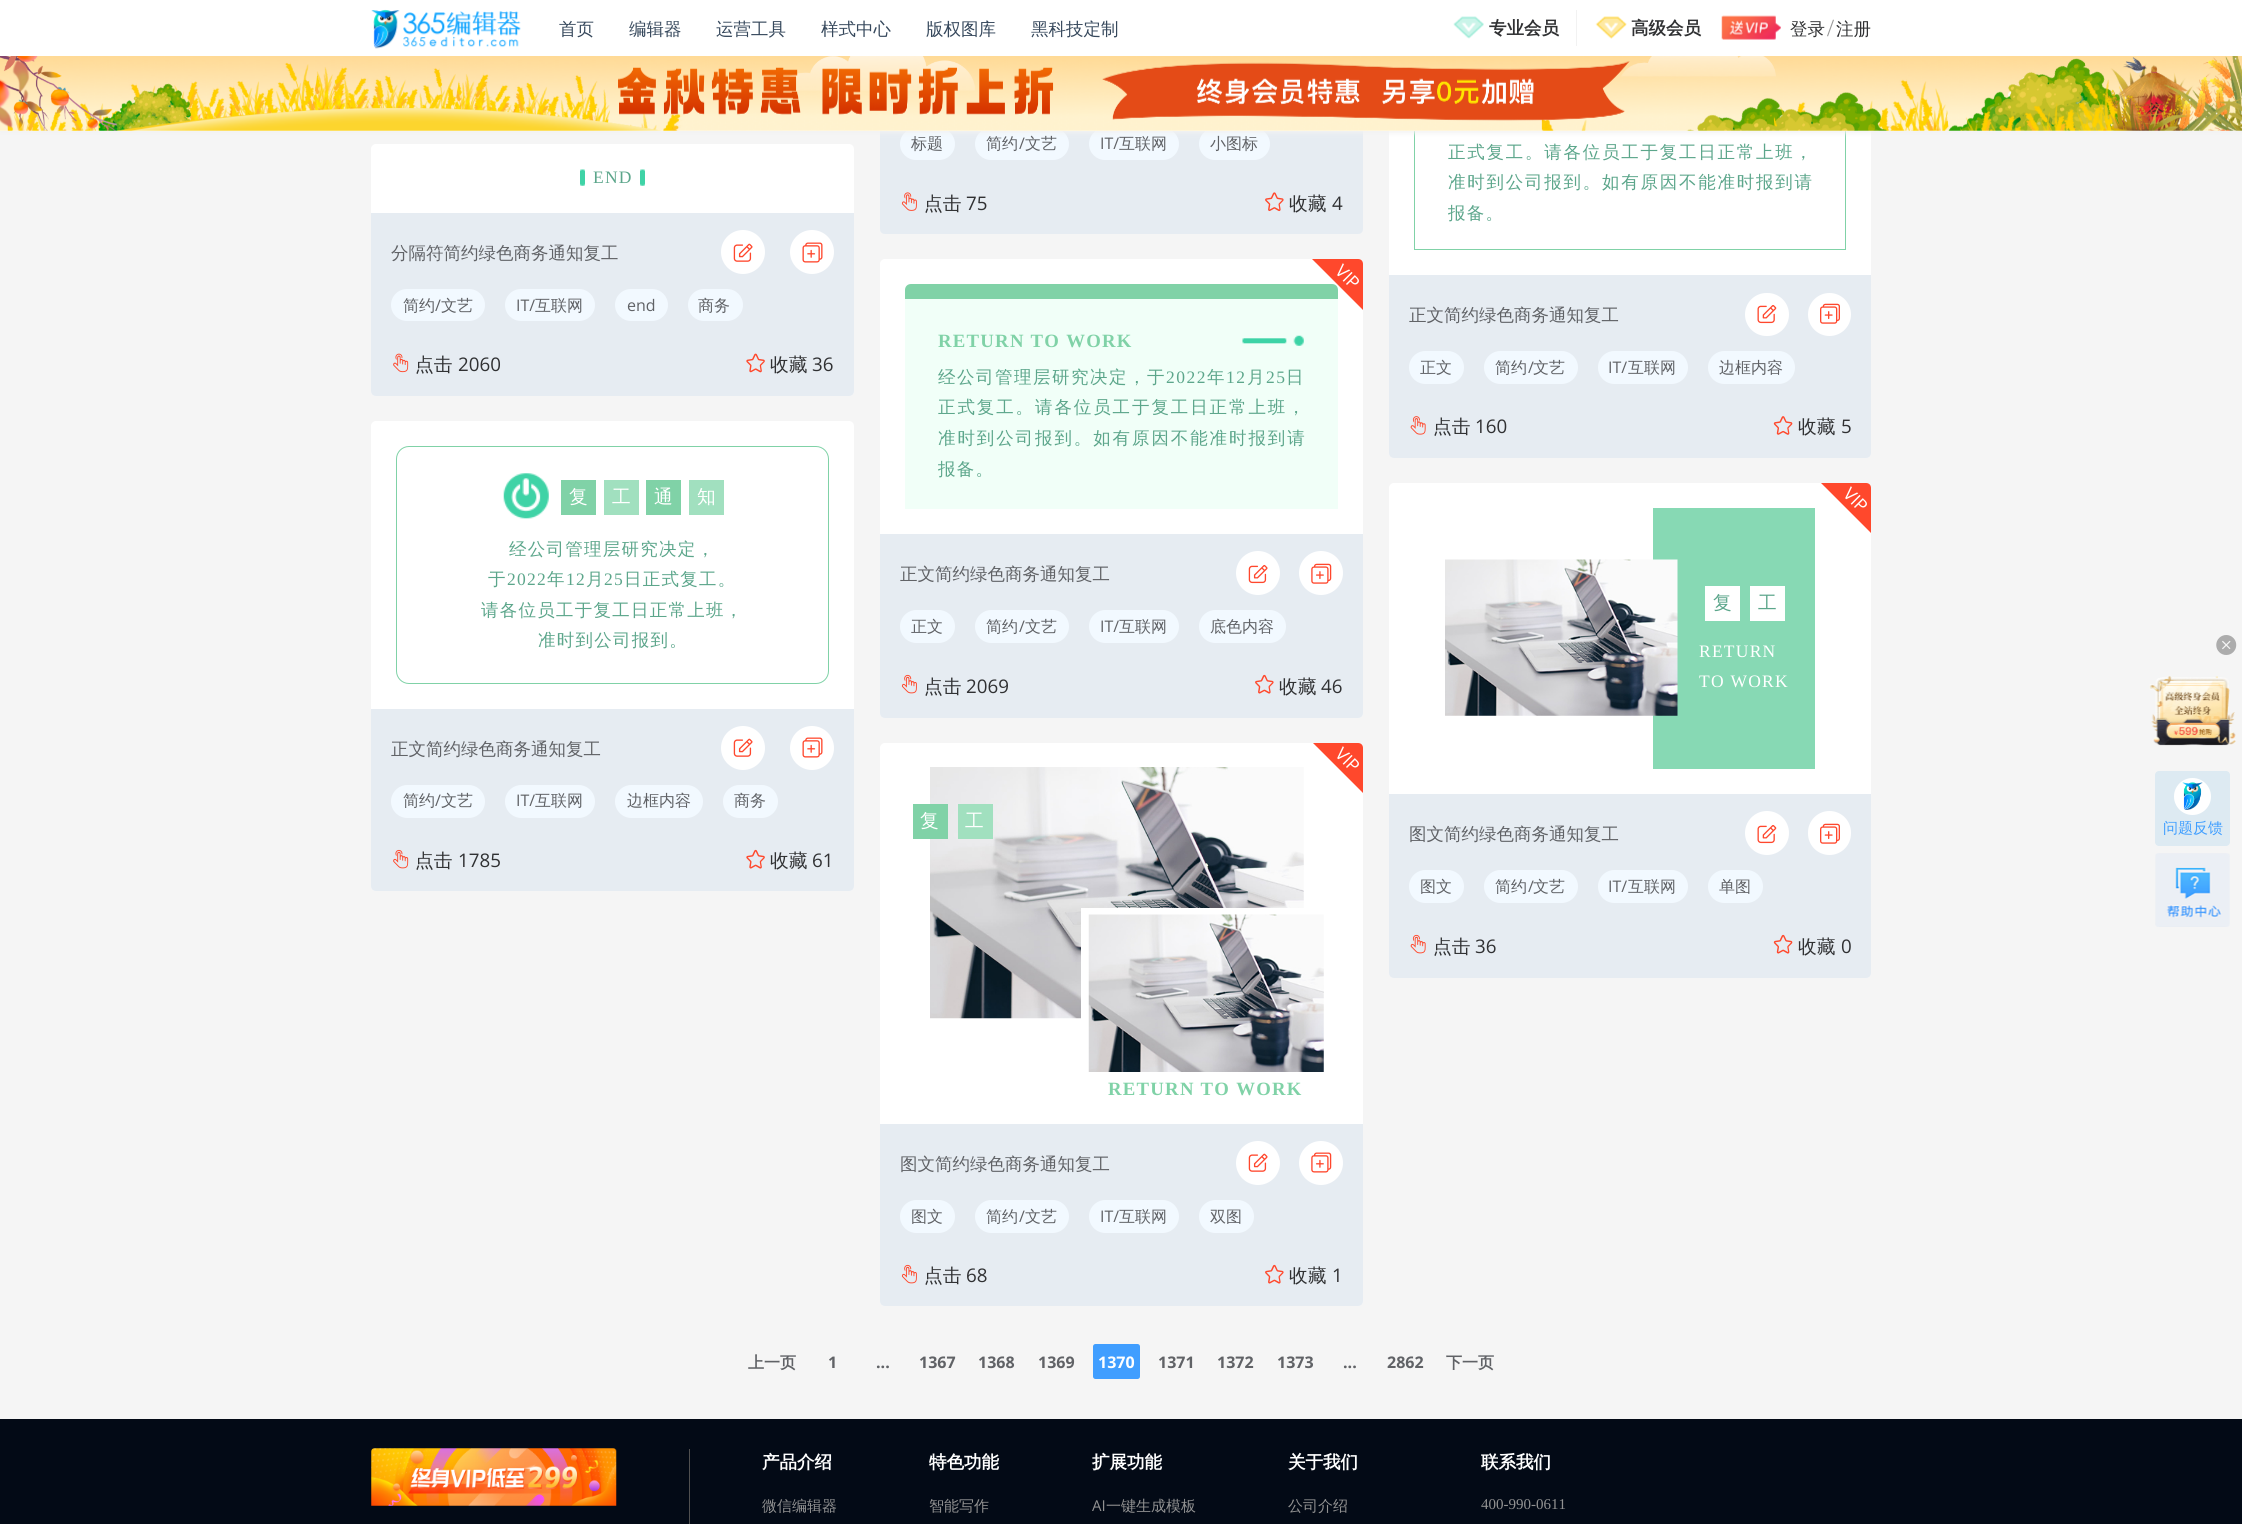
import math
import cairo

surface = cairo.ImageSurface(cairo.FORMAT_RGB24, 2242, 1524)
ctx = cairo.Context(surface)
options = cairo.FontOptions()
options.set_hint_metrics(cairo.HINT_METRICS_OFF)
options.set_hint_style(cairo.HINT_STYLE_NONE)
ctx.set_font_options(options)
ctx.set_miter_limit(4)


def set_color(code):
    ctx.set_source_rgb(*(v / 255 for v in bytes.fromhex(code[-6:])))


def draw_text(x, y, s, family, size, color, bold=False, italic=False):
    ctx.select_font_face(family, cairo.FONT_SLANT_ITALIC if italic else cairo.FONT_SLANT_NORMAL, cairo.FONT_WEIGHT_BOLD if bold else cairo.FONT_WEIGHT_NORMAL)
    ctx.set_font_size(size)
    set_color(color)
    ctx.move_to(x, y)
    ctx.show_text(s)


def draw_spaced(x, y, s, letter, word):
    ctx.move_to(x, y)
    for ch in s:
        ctx.show_text(ch)
        ctx.rel_move_to(letter + word * (ch == ' '), 0)


def fill_rect(x, y, w, h, color):
    set_color(color)
    ctx.rectangle(x, y, w, h)
    ctx.fill()


def rounded_rect(x, y, w, h, r):
    ctx.new_sub_path()
    for i, (u, v) in enumerate([(x + w - r, y + h - r), (x + r, y + h - r), (x + r, y + r), (x + w - r, y + r)]):
        ctx.arc(u, v, r, i * math.pi / 2, (i + 1) * math.pi / 2)
    ctx.close_path()


def draw_shadow(x, y, w, h, r, blur, alpha):
    ctx.push_group_with_content(cairo.CONTENT_ALPHA)
    ctx.set_operator(cairo.OPERATOR_SOURCE)
    for i in range(15, -16, -2):
        e = blur * i / 6
        if min(w, h) + 2 * e > 0:
            ctx.set_source_rgba(0, 0, 0, alpha * math.erfc((i - 1) / 8.5) / 2)
            rounded_rect(x - e, y - e, w + 2 * e, h + 2 * e, max(0, min(r + e + blur * .6, min(w, h) / 2 + e)))
            ctx.fill()
    ctx.mask(ctx.pop_group())


def draw_image(path, x, y, w, h):
    ctx.save()
    ctx.set_source_surface(cairo.ImageSurface.create_from_png(path), x, y)
    ctx.rectangle(x, y, w, h)
    ctx.fill()
    ctx.restore()


set_color("#f5f5f5")
ctx.paint()
set_color("#e6ecf2")
ctx.new_path()
ctx.move_to(880, 51)
ctx.line_to(1363, 51)
ctx.line_to(1363, 229)
ctx.curve_to(1363, 232, 1361, 234, 1358, 234)
ctx.line_to(885, 234)
ctx.curve_to(882, 234, 880, 232, 880, 229)
ctx.close_path()
ctx.fill()
set_color("#f2f9ff")
rounded_rect(900, 128, 55, 32, 16)
ctx.fill()
rounded_rect(975, 128, 94, 32, 16)
ctx.fill()
rounded_rect(1089, 128, 90, 32, 16)
ctx.fill()
rounded_rect(1199, 128, 71, 32, 16)
ctx.fill()
set_color("#ffffff")
rounded_rect(1389, 46, 482, 412, 5)
ctx.fill()
ctx.rectangle(1414.5, 88.5, 431, 161)
set_color("#80d2a7")
ctx.set_line_width(1)
ctx.stroke()
set_color("#f2f2f2")
draw_shadow(-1, -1, 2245, 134, 0, 2.5, 1)
fill_rect(0, 0, 2242, 131, "#ffffff")
draw_image("assets/img1.png", 371, 9, 150, 40)
draw_text(559, 35, "首页", "WenQuanYi Zen Hei Medium", 17.5, "#36485c")
draw_text(629, 35, "编辑器", "WenQuanYi Zen Hei Medium", 17.5, "#36485c")
draw_text(716, 35, "运营工具", "WenQuanYi Zen Hei Medium", 17.5, "#36485c")
draw_text(821, 35, "样式中心", "WenQuanYi Zen Hei Medium", 17.5, "#36485c")
draw_text(926, 35, "版权图库", "WenQuanYi Zen Hei Medium", 17.5, "#36485c")
draw_text(1031, 35, "黑科技定制", "WenQuanYi Zen Hei Medium", 17.5, "#36485c")
draw_image("assets/img2.png", 1453, 16, 31, 23)
draw_text(1489, 34, "专业会员", "WenQuanYi Zen Hei", 17.5, "#303133", bold=True)
fill_rect(1576, 10, 1, 36, "#f2f2f2")
draw_image("assets/img3.png", 1595, 16, 32, 23)
draw_text(1631, 34, "高级会员", "WenQuanYi Zen Hei", 17.5, "#303133", bold=True)
draw_image("assets/img4.png", 1721, 15, 60, 25)
draw_text(1790, 35, "登录", "WenQuanYi Zen Hei Medium", 17.5, "#303133")
set_color("#999999")
ctx.new_path()
ctx.move_to(1833, 19.5)
ctx.line_to(1834, 20)
ctx.line_to(1828, 36.5)
ctx.line_to(1827, 36)
ctx.close_path()
ctx.fill()
draw_text(1836, 35, "注册", "WenQuanYi Zen Hei Medium", 17.5, "#303133")
draw_image("assets/img5.png", 0, 56, 2242, 75)
draw_image("assets/img6.png", 618, 61, 1012, 60)
set_color("#ffffff")
rounded_rect(371, 144, 483, 252, 5)
ctx.fill()
draw_image("assets/img7.png", 580, 169, 5, 17)
ctx.select_font_face("Liberation Serif")
set_color("#5ca68b")
draw_spaced(593, 183, "END", 1.25, 0)
draw_image("assets/img7.png", 640, 169, 5, 17)
set_color("#e6ecf2")
ctx.new_path()
ctx.move_to(371, 213)
ctx.line_to(854, 213)
ctx.line_to(854, 391)
ctx.curve_to(854, 394, 852, 396, 849, 396)
ctx.line_to(376, 396)
ctx.curve_to(373, 396, 371, 394, 371, 391)
ctx.close_path()
ctx.fill()
draw_text(391, 259, "分隔符简约绿色商务通知复工", "WenQuanYi Zen Hei Medium", 17.5, "#606266")
set_color("#ffffff")
ctx.new_path()
ctx.arc(743, 252, 22, 0, 2 * math.pi)
ctx.fill()
draw_image("assets/img8.png", 733, 243, 20, 19)
ctx.arc(812, 252, 22, 0, 2 * math.pi)
ctx.fill()
draw_image("assets/img9.png", 802, 242, 21, 21)
set_color("#f2f9ff")
rounded_rect(391, 289, 94, 32, 16)
ctx.fill()
draw_text(403, 311, "简约", "WenQuanYi Zen Hei Medium", 16, "#606266")
draw_text(435, 311, "/", "Open Sans", 16, "#606266")
draw_text(441, 311, "文艺", "WenQuanYi Zen Hei Medium", 16, "#606266")
set_color("#f2f9ff")
rounded_rect(505, 289, 90, 32, 16)
ctx.fill()
draw_text(516, 311, "IT/", "Open Sans", 16, "#606266")
draw_text(535, 311, "互联网", "WenQuanYi Zen Hei Medium", 16, "#606266")
set_color("#f2f9ff")
rounded_rect(615, 289, 53, 32, 16)
ctx.fill()
draw_text(627, 311, "end", "Open Sans", 16, "#606266")
set_color("#f2f9ff")
rounded_rect(688, 289, 55, 32, 16)
ctx.fill()
draw_text(698, 311, "商务", "WenQuanYi Zen Hei Medium", 16, "#606266")
draw_image("assets/img10.png", 393, 353, 16, 20)
draw_text(415, 371, "点击", "WenQuanYi Zen Hei Medium", 18.75, "#303133")
draw_text(458, 371, "2060", "Open Sans", 18.75, "#303133")
draw_image("assets/img11.png", 746, 353, 19, 20)
draw_text(770, 371, "收藏", "WenQuanYi Zen Hei Medium", 18.75, "#303133")
draw_text(812, 371, "36", "Open Sans", 18.75, "#303133")
set_color("#ffffff")
rounded_rect(371, 421, 483, 470, 5)
ctx.fill()
rounded_rect(396.5, 446.5, 432, 237, 12.5)
set_color("#80d2a7")
ctx.stroke()
draw_image("assets/img12.png", 503, 473, 46, 46)
fill_rect(561, 480, 35, 35, "#80d2a7")
draw_text(569, 503, "复", "WenQuanYi Zen Hei Medium", 18.75, "#ffffff")
fill_rect(604, 480, 35, 35, "#a1e0bf")
draw_text(612, 503, "工", "WenQuanYi Zen Hei Medium", 18.75, "#ffffff")
fill_rect(646, 480, 35, 35, "#80d2a7")
draw_text(654, 503, "通", "WenQuanYi Zen Hei Medium", 18.75, "#ffffff")
fill_rect(689, 480, 35, 35, "#a1e0bf")
draw_text(697, 503, "知", "WenQuanYi Zen Hei Medium", 18.75, "#ffffff")
ctx.set_font_size(17.5)
set_color("#5ca68b")
draw_spaced(509, 555, "经公司管理层研究决定，", 1.25, 0)
draw_spaced(488, 585, "于", 1.25, 0)
ctx.select_font_face("Liberation Serif")
draw_spaced(507, 585, "2022", 1.25, 0)
ctx.select_font_face("WenQuanYi Zen Hei Medium")
draw_spaced(547, 585, "年", 1.25, 0)
ctx.select_font_face("Liberation Serif")
draw_spaced(566, 585, "12", 1.25, 0)
ctx.select_font_face("WenQuanYi Zen Hei Medium")
draw_spaced(586, 585, "月", 1.25, 0)
ctx.select_font_face("Liberation Serif")
draw_spaced(604, 585, "25", 1.25, 0)
ctx.select_font_face("WenQuanYi Zen Hei Medium")
draw_spaced(624, 585, "日正式复工。", 1.25, 0)
draw_spaced(481, 616, "请各位员工于复工日正常上班，", 1.25, 0)
draw_spaced(538, 646, "准时到公司报到。", 1.25, 0)
set_color("#e6ecf2")
ctx.new_path()
ctx.move_to(371, 709)
ctx.line_to(854, 709)
ctx.line_to(854, 886)
ctx.curve_to(854, 889, 852, 891, 849, 891)
ctx.line_to(376, 891)
ctx.curve_to(373, 891, 371, 889, 371, 886)
ctx.close_path()
ctx.fill()
draw_text(391, 755, "正文简约绿色商务通知复工", "WenQuanYi Zen Hei Medium", 17.5, "#606266")
set_color("#ffffff")
ctx.new_path()
ctx.arc(743, 748, 22, 0, 2 * math.pi)
ctx.fill()
draw_image("assets/img8.png", 733, 738, 20, 19)
ctx.arc(812, 748, 22, 0, 2 * math.pi)
ctx.fill()
draw_image("assets/img9.png", 802, 737, 21, 21)
set_color("#f2f9ff")
rounded_rect(391, 785, 94, 33, 16.5)
ctx.fill()
draw_text(403, 806, "简约", "WenQuanYi Zen Hei Medium", 16, "#606266")
draw_text(435, 806, "/", "Open Sans", 16, "#606266")
draw_text(441, 806, "文艺", "WenQuanYi Zen Hei Medium", 16, "#606266")
set_color("#f2f9ff")
rounded_rect(505, 785, 90, 33, 16.5)
ctx.fill()
draw_text(516, 806, "IT/", "Open Sans", 16, "#606266")
draw_text(535, 806, "互联网", "WenQuanYi Zen Hei Medium", 16, "#606266")
set_color("#f2f9ff")
rounded_rect(615, 785, 88, 33, 16.5)
ctx.fill()
draw_text(627, 806, "边框内容", "WenQuanYi Zen Hei Medium", 16, "#606266")
set_color("#f2f9ff")
rounded_rect(723, 785, 55, 33, 16.5)
ctx.fill()
draw_text(734, 806, "商务", "WenQuanYi Zen Hei Medium", 16, "#606266")
draw_image("assets/img13.png", 393, 849, 16, 20)
draw_text(415, 867, "点击", "WenQuanYi Zen Hei Medium", 18.75, "#303133")
draw_text(458, 867, "1785", "Open Sans", 18.75, "#303133")
draw_image("assets/img14.png", 746, 849, 19, 20)
draw_text(770, 867, "收藏", "WenQuanYi Zen Hei Medium", 18.75, "#303133")
draw_text(812, 867, "61", "Open Sans", 18.75, "#303133")
draw_text(911, 149, "标题", "WenQuanYi Zen Hei Medium", 16, "#606266")
draw_text(986, 149, "简约", "WenQuanYi Zen Hei Medium", 16, "#606266")
draw_text(1019, 149, "/", "Open Sans", 16, "#606266")
draw_text(1025, 149, "文艺", "WenQuanYi Zen Hei Medium", 16, "#606266")
draw_text(1100, 149, "IT/", "Open Sans", 16, "#606266")
draw_text(1119, 149, "互联网", "WenQuanYi Zen Hei Medium", 16, "#606266")
draw_text(1210, 149, "小图标", "WenQuanYi Zen Hei Medium", 16, "#606266")
draw_image("assets/img15.png", 901, 192, 16, 19)
draw_text(924, 210, "点击", "WenQuanYi Zen Hei Medium", 18.75, "#303133")
draw_text(966, 210, "75", "Open Sans", 18.75, "#303133")
draw_image("assets/img16.png", 1265, 192, 19, 20)
draw_text(1289, 210, "收藏", "WenQuanYi Zen Hei Medium", 18.75, "#303133")
draw_text(1332, 210, "4", "Open Sans", 18.75, "#303133")
set_color("#ffffff")
rounded_rect(880, 259, 483, 459, 5)
ctx.fill()
set_color("#80d2a7")
ctx.new_path()
ctx.move_to(911, 284)
ctx.line_to(1332, 284)
ctx.curve_to(1335.5, 284, 1338, 286.5, 1338, 290)
ctx.line_to(1338, 299)
ctx.line_to(905, 299)
ctx.line_to(905, 290)
ctx.curve_to(905, 286.5, 907.5, 284, 911, 284)
ctx.close_path()
ctx.fill()
fill_rect(905, 299, 433, 210, "#f1fff8")
set_color("#ff482c")
ctx.new_path()
ctx.move_to(1363, 310)
ctx.line_to(1312, 259)
ctx.line_to(1358, 259)
ctx.curve_to(1361, 259, 1363, 261, 1363, 264)
ctx.close_path()
ctx.fill()
ctx.save()
ctx.translate(1334, 272)
ctx.rotate(45 * math.pi / 180)
draw_text(0, 0, "VIP", "Open Sans", 17.5, "#ffffff")
ctx.restore()
ctx.select_font_face("Liberation Serif", cairo.FONT_SLANT_NORMAL, cairo.FONT_WEIGHT_BOLD)
ctx.set_font_size(18.75)
set_color("#80d2a7")
draw_spaced(938, 347, "RETURN TO WORK", 1.25, 0)
draw_image("assets/img17.png", 1242, 335, 62, 11)
ctx.select_font_face("WenQuanYi Zen Hei Medium")
ctx.set_font_size(17.5)
set_color("#5ca68b")
draw_spaced(938, 383, "经公司管理层研究决定，于", 1.5, 0)
ctx.select_font_face("Liberation Serif")
draw_spaced(1166, 383, "2022", 1.5, 0)
ctx.select_font_face("WenQuanYi Zen Hei Medium")
draw_spaced(1207, 383, "年", 1.5, 0)
ctx.select_font_face("Liberation Serif")
draw_spaced(1226, 383, "12", 1.5, 0)
ctx.select_font_face("WenQuanYi Zen Hei Medium")
draw_spaced(1247, 383, "月", 1.5, 0)
ctx.select_font_face("Liberation Serif")
draw_spaced(1266, 383, "25", 1.5, 0)
ctx.select_font_face("WenQuanYi Zen Hei Medium")
draw_spaced(1286, 383, "日", 1.5, 0)
draw_spaced(938, 413, "正式复工。请各位员工于复工日正常上班，", 1.9, 0)
draw_spaced(938, 444, "准时到公司报到。如有原因不能准时报到请", 1.9, 0)
draw_spaced(938, 475, "报备。", 1.25, 0)
set_color("#e6ecf2")
ctx.new_path()
ctx.move_to(880, 534)
ctx.line_to(1363, 534)
ctx.line_to(1363, 713)
ctx.curve_to(1363, 716, 1361, 718, 1358, 718)
ctx.line_to(885, 718)
ctx.curve_to(882, 718, 880, 716, 880, 713)
ctx.close_path()
ctx.fill()
draw_text(900, 580, "正文简约绿色商务通知复工", "WenQuanYi Zen Hei Medium", 17.5, "#606266")
set_color("#ffffff")
ctx.new_path()
ctx.arc(1258, 573, 22, 0, 2 * math.pi)
ctx.fill()
draw_image("assets/img18.png", 1248, 564, 20, 20)
ctx.arc(1321, 573, 22, 0, 2 * math.pi)
ctx.fill()
draw_image("assets/img19.png", 1311, 563, 21, 21)
set_color("#f2f9ff")
rounded_rect(900, 610, 55, 33, 16.5)
ctx.fill()
draw_text(911, 632, "正文", "WenQuanYi Zen Hei Medium", 16, "#606266")
set_color("#f2f9ff")
rounded_rect(975, 610, 94, 33, 16.5)
ctx.fill()
draw_text(986, 632, "简约", "WenQuanYi Zen Hei Medium", 16, "#606266")
draw_text(1019, 632, "/", "Open Sans", 16, "#606266")
draw_text(1025, 632, "文艺", "WenQuanYi Zen Hei Medium", 16, "#606266")
set_color("#f2f9ff")
rounded_rect(1089, 610, 90, 33, 16.5)
ctx.fill()
draw_text(1100, 632, "IT/", "Open Sans", 16, "#606266")
draw_text(1119, 632, "互联网", "WenQuanYi Zen Hei Medium", 16, "#606266")
set_color("#f2f9ff")
rounded_rect(1199, 610, 87, 33, 16.5)
ctx.fill()
draw_text(1210, 632, "底色内容", "WenQuanYi Zen Hei Medium", 16, "#606266")
draw_image("assets/img20.png", 901, 674, 16, 20)
draw_text(924, 693, "点击", "WenQuanYi Zen Hei Medium", 18.75, "#303133")
draw_text(966, 693, "2069", "Open Sans", 18.75, "#303133")
draw_image("assets/img21.png", 1255, 674, 19, 20)
draw_text(1279, 693, "收藏", "WenQuanYi Zen Hei Medium", 18.75, "#303133")
draw_text(1321, 693, "46", "Open Sans", 18.75, "#303133")
set_color("#ffffff")
rounded_rect(880, 743, 483, 563, 5)
ctx.fill()
set_color("#ff482c")
ctx.new_path()
ctx.move_to(1363, 793)
ctx.line_to(1313, 743)
ctx.line_to(1358, 743)
ctx.curve_to(1361, 743, 1363, 745, 1363, 748)
ctx.close_path()
ctx.fill()
ctx.save()
ctx.translate(1334, 755)
ctx.rotate(45 * math.pi / 180)
draw_text(0, 0, "VIP", "Open Sans", 17.5, "#ffffff")
ctx.restore()
draw_image("assets/img22.png", 930, 767, 374, 252)
fill_rect(913, 804, 35, 35, "#80d2a7")
draw_text(920, 827, "复", "WenQuanYi Zen Hei Medium", 18.75, "#ffffff")
fill_rect(958, 804, 35, 35, "#a1e0bf")
draw_text(965, 827, "工", "WenQuanYi Zen Hei Medium", 18.75, "#ffffff")
fill_rect(1081, 908, 223, 111, "#ffffff")
draw_image("assets/img23.png", 1088, 914, 236, 158)
ctx.select_font_face("Liberation Serif", cairo.FONT_SLANT_NORMAL, cairo.FONT_WEIGHT_BOLD)
set_color("#80d2a7")
draw_spaced(1108, 1095, "RETURN TO WORK", 1.25, 0)
set_color("#e6ecf2")
ctx.new_path()
ctx.move_to(880, 1124)
ctx.line_to(1363, 1124)
ctx.line_to(1363, 1301)
ctx.curve_to(1363, 1304, 1361, 1306, 1358, 1306)
ctx.line_to(885, 1306)
ctx.curve_to(882, 1306, 880, 1304, 880, 1301)
ctx.close_path()
ctx.fill()
draw_text(900, 1170, "图文简约绿色商务通知复工", "WenQuanYi Zen Hei Medium", 17.5, "#606266")
set_color("#ffffff")
ctx.new_path()
ctx.arc(1258, 1163, 22, 0, 2 * math.pi)
ctx.fill()
draw_image("assets/img8.png", 1248, 1153, 20, 19)
ctx.arc(1321, 1163, 22, 0, 2 * math.pi)
ctx.fill()
draw_image("assets/img24.png", 1311, 1152, 21, 21)
set_color("#f2f9ff")
rounded_rect(900, 1200, 55, 33, 16.5)
ctx.fill()
draw_text(911, 1222, "图文", "WenQuanYi Zen Hei Medium", 16, "#606266")
set_color("#f2f9ff")
rounded_rect(975, 1200, 94, 33, 16.5)
ctx.fill()
draw_text(986, 1222, "简约", "WenQuanYi Zen Hei Medium", 16, "#606266")
draw_text(1019, 1222, "/", "Open Sans", 16, "#606266")
draw_text(1025, 1222, "文艺", "WenQuanYi Zen Hei Medium", 16, "#606266")
set_color("#f2f9ff")
rounded_rect(1089, 1200, 90, 33, 16.5)
ctx.fill()
draw_text(1100, 1222, "IT/", "Open Sans", 16, "#606266")
draw_text(1119, 1222, "互联网", "WenQuanYi Zen Hei Medium", 16, "#606266")
set_color("#f2f9ff")
rounded_rect(1199, 1200, 55, 33, 16.5)
ctx.fill()
draw_text(1210, 1222, "双图", "WenQuanYi Zen Hei Medium", 16, "#606266")
draw_image("assets/img20.png", 901, 1264, 16, 20)
draw_text(924, 1282, "点击", "WenQuanYi Zen Hei Medium", 18.75, "#303133")
draw_text(966, 1282, "68", "Open Sans", 18.75, "#303133")
draw_image("assets/img21.png", 1265, 1264, 19, 20)
draw_text(1289, 1282, "收藏", "WenQuanYi Zen Hei Medium", 18.75, "#303133")
draw_text(1332, 1282, "1", "Open Sans", 18.75, "#303133")
ctx.select_font_face("WenQuanYi Zen Hei Medium")
ctx.set_font_size(17.5)
set_color("#5ca68b")
draw_spaced(1448, 158, "正式复工。请各位员工于复工日正常上班，", 1.75, 0)
draw_spaced(1448, 188, "准时到公司报到。如有原因不能准时报到请", 1.75, 0)
draw_spaced(1448, 219, "报备。", 1.25, 0)
set_color("#e6ecf2")
ctx.new_path()
ctx.move_to(1389, 275)
ctx.line_to(1871, 275)
ctx.line_to(1871, 453)
ctx.curve_to(1871, 456, 1869, 458, 1866, 458)
ctx.line_to(1394, 458)
ctx.curve_to(1391, 458, 1389, 456, 1389, 453)
ctx.close_path()
ctx.fill()
draw_text(1409, 321, "正文简约绿色商务通知复工", "WenQuanYi Zen Hei Medium", 17.5, "#606266")
set_color("#ffffff")
rounded_rect(1745, 293, 44, 43, 21.5)
ctx.fill()
draw_image("assets/img25.png", 1757, 305, 20, 19)
ctx.arc(1829.5, 314.5, 21.5, 0, 2 * math.pi)
ctx.fill()
draw_image("assets/img26.png", 1820, 303, 20, 21)
set_color("#f2f9ff")
rounded_rect(1409, 351, 55, 33, 16.5)
ctx.fill()
draw_text(1420, 373, "正文", "WenQuanYi Zen Hei Medium", 16, "#606266")
set_color("#f2f9ff")
rounded_rect(1484, 351, 94, 33, 16.5)
ctx.fill()
draw_text(1495, 373, "简约", "WenQuanYi Zen Hei Medium", 16, "#606266")
draw_text(1528, 373, "/", "Open Sans", 16, "#606266")
draw_text(1533, 373, "文艺", "WenQuanYi Zen Hei Medium", 16, "#606266")
set_color("#f2f9ff")
rounded_rect(1598, 351, 90, 33, 16.5)
ctx.fill()
draw_text(1608, 373, "IT/", "Open Sans", 16, "#606266")
draw_text(1628, 373, "互联网", "WenQuanYi Zen Hei Medium", 16, "#606266")
set_color("#f2f9ff")
rounded_rect(1708, 351, 87, 33, 16.5)
ctx.fill()
draw_text(1719, 373, "边框内容", "WenQuanYi Zen Hei Medium", 16, "#606266")
draw_image("assets/img27.png", 1410, 416, 16, 19)
draw_text(1433, 433, "点击", "WenQuanYi Zen Hei Medium", 18.75, "#303133")
draw_text(1475, 433, "160", "Open Sans", 18.75, "#303133")
draw_image("assets/img28.png", 1773, 416, 20, 19)
draw_text(1798, 433, "收藏", "WenQuanYi Zen Hei Medium", 18.75, "#303133")
draw_text(1841, 433, "5", "Open Sans", 18.75, "#303133")
set_color("#ffffff")
rounded_rect(1389, 483, 482, 495, 5)
ctx.fill()
set_color("#ff482c")
ctx.new_path()
ctx.move_to(1871, 533)
ctx.line_to(1821, 483)
ctx.line_to(1866, 483)
ctx.curve_to(1869, 483, 1871, 485, 1871, 488)
ctx.close_path()
ctx.fill()
ctx.save()
ctx.translate(1842, 495)
ctx.rotate(45 * math.pi / 180)
draw_text(0, 0, "VIP", "Open Sans", 17.5, "#ffffff")
ctx.restore()
fill_rect(1653, 508, 162, 261, "#87d9b4")
draw_image("assets/img29.png", 1445, 559, 233, 157)
fill_rect(1705, 586, 35, 35, "#ffffff")
draw_text(1713, 609, "复", "WenQuanYi Zen Hei Medium", 18.75, "#5ca68b")
fill_rect(1750, 586, 35, 35, "#ffffff")
draw_text(1758, 609, "工", "WenQuanYi Zen Hei Medium", 18.75, "#5ca68b")
ctx.select_font_face("Liberation Serif")
ctx.set_font_size(17.5)
set_color("#ffffff")
draw_spaced(1699, 657, "RETURN", 1.25, 0)
draw_spaced(1699, 687, "TO WORK", 1.25, 0)
set_color("#e6ecf2")
ctx.new_path()
ctx.move_to(1389, 794)
ctx.line_to(1871, 794)
ctx.line_to(1871, 973)
ctx.curve_to(1871, 976, 1869, 978, 1866, 978)
ctx.line_to(1394, 978)
ctx.curve_to(1391, 978, 1389, 976, 1389, 973)
ctx.close_path()
ctx.fill()
draw_text(1409, 840, "图文简约绿色商务通知复工", "WenQuanYi Zen Hei Medium", 17.5, "#606266")
set_color("#ffffff")
ctx.new_path()
ctx.arc(1767, 833, 22, 0, 2 * math.pi)
ctx.fill()
draw_image("assets/img25.png", 1757, 825, 20, 19)
rounded_rect(1808, 811, 43, 44, 21.5)
ctx.fill()
draw_image("assets/img26.png", 1820, 823, 20, 21)
set_color("#f2f9ff")
rounded_rect(1409, 870, 55, 33, 16.5)
ctx.fill()
draw_text(1420, 892, "图文", "WenQuanYi Zen Hei Medium", 16, "#606266")
set_color("#f2f9ff")
rounded_rect(1484, 870, 94, 33, 16.5)
ctx.fill()
draw_text(1495, 892, "简约", "WenQuanYi Zen Hei Medium", 16, "#606266")
draw_text(1528, 892, "/", "Open Sans", 16, "#606266")
draw_text(1533, 892, "文艺", "WenQuanYi Zen Hei Medium", 16, "#606266")
set_color("#f2f9ff")
rounded_rect(1598, 870, 90, 33, 16.5)
ctx.fill()
draw_text(1608, 892, "IT/", "Open Sans", 16, "#606266")
draw_text(1628, 892, "互联网", "WenQuanYi Zen Hei Medium", 16, "#606266")
set_color("#f2f9ff")
rounded_rect(1708, 870, 55, 33, 16.5)
ctx.fill()
draw_text(1719, 892, "单图", "WenQuanYi Zen Hei Medium", 16, "#606266")
draw_image("assets/img30.png", 1410, 934, 16, 20)
draw_text(1433, 953, "点击", "WenQuanYi Zen Hei Medium", 18.75, "#303133")
draw_text(1475, 953, "36", "Open Sans", 18.75, "#303133")
draw_image("assets/img31.png", 1773, 934, 20, 20)
draw_text(1798, 953, "收藏", "WenQuanYi Zen Hei Medium", 18.75, "#303133")
draw_text(1841, 953, "0", "Open Sans", 18.75, "#303133")
draw_text(748, 1368, "上一页", "WenQuanYi Zen Hei", 16, "#606266", bold=True)
draw_text(828, 1368, "1", "Open Sans", 16, "#606266", bold=True)
draw_text(876, 1368, "...", "Open Sans", 16, "#606266", bold=True)
draw_text(919, 1368, "1367", "Open Sans", 16, "#606266", bold=True)
draw_text(978, 1368, "1368", "Open Sans", 16, "#606266", bold=True)
draw_text(1038, 1368, "1369", "Open Sans", 16, "#606266", bold=True)
set_color("#409eff")
rounded_rect(1093, 1344, 47, 35, 2.5)
ctx.fill()
draw_text(1098, 1368, "1370", "Open Sans", 16, "#ffffff", bold=True)
draw_text(1158, 1368, "1371", "Open Sans", 16, "#606266", bold=True)
draw_text(1217, 1368, "1372", "Open Sans", 16, "#606266", bold=True)
draw_text(1277, 1368, "1373", "Open Sans", 16, "#606266", bold=True)
draw_text(1343, 1368, "...", "Open Sans", 16, "#606266", bold=True)
draw_text(1387, 1368, "2862", "Open Sans", 16, "#606266", bold=True)
draw_text(1446, 1368, "下一页", "WenQuanYi Zen Hei", 16, "#606266", bold=True)
draw_image("assets/img32.png", 2216, 635, 21, 20)
draw_image("assets/img33.png", 2149, 676, 87, 70)
set_color("#ddeaf2")
rounded_rect(2155, 771, 75, 75, 4)
ctx.fill()
set_color("#ffffff")
ctx.arc(2192.5, 796.5, 18.5, 0, 2 * math.pi)
ctx.fill()
draw_image("assets/img34.png", 2182, 782, 21, 28)
draw_text(2163, 833, "问题反馈", "WenQuanYi Zen Hei Medium", 15, "#3f9eff")
draw_image("assets/img35.png", 2155, 853, 75, 74)
fill_rect(0, 1419, 2242, 105, "#030a16")
draw_image("assets/img36.png", 371, 1448, 246, 58)
fill_rect(689, 1449, 1, 75, "#505050")
draw_text(762, 1468, "产品介绍", "WenQuanYi Zen Hei", 17.5, "#ffffff", bold=True)
draw_text(762, 1511, "微信编辑器", "WenQuanYi Zen Hei Medium", 15, "#929292")
draw_text(929, 1468, "特色功能", "WenQuanYi Zen Hei", 17.5, "#ffffff", bold=True)
draw_text(929, 1511, "智能写作", "WenQuanYi Zen Hei Medium", 15, "#929292")
draw_text(1092, 1468, "扩展功能", "WenQuanYi Zen Hei", 17.5, "#ffffff", bold=True)
draw_text(1092, 1511, "AI", "Open Sans", 15, "#929292")
draw_text(1106, 1511, "一键生成模板", "WenQuanYi Zen Hei Medium", 15, "#929292")
draw_text(1288, 1468, "关于我们", "WenQuanYi Zen Hei", 17.5, "#ffffff", bold=True)
draw_text(1288, 1511, "公司介绍", "WenQuanYi Zen Hei Medium", 15, "#929292")
draw_text(1481, 1468, "联系我们", "WenQuanYi Zen Hei", 17.5, "#ffffff", bold=True)
draw_text(1481, 1509, "400-990-0611", "Liberation Serif", 15, "#929292")
surface.write_to_png("output.png")
